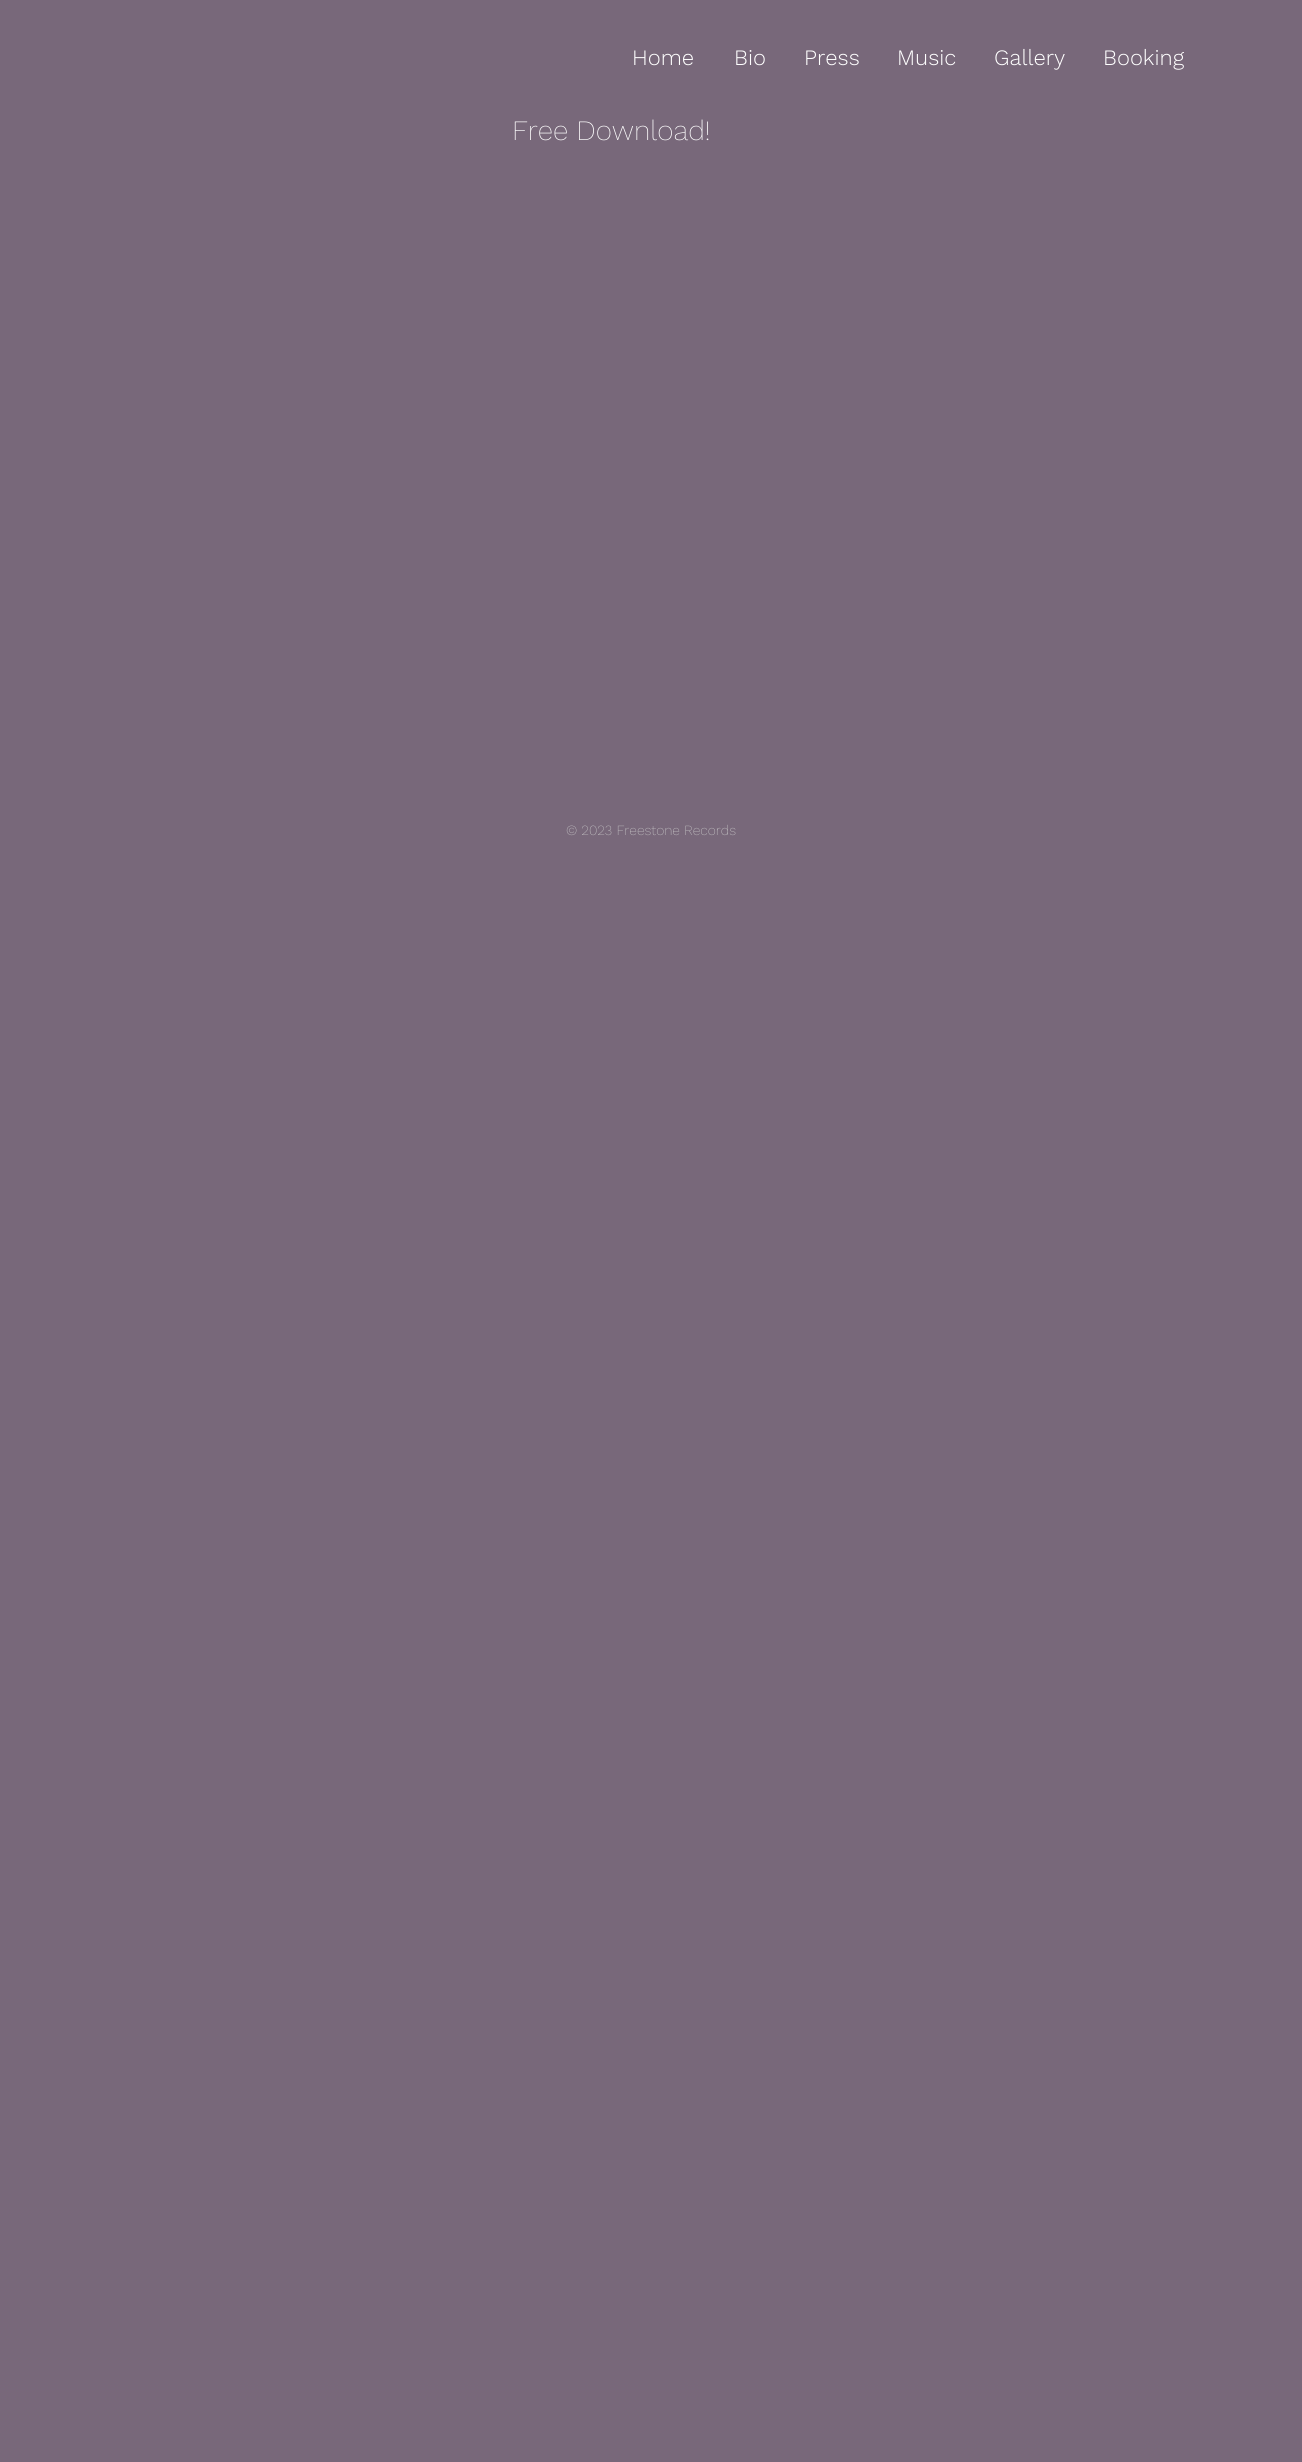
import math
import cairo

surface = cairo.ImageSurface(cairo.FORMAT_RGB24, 1302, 2462)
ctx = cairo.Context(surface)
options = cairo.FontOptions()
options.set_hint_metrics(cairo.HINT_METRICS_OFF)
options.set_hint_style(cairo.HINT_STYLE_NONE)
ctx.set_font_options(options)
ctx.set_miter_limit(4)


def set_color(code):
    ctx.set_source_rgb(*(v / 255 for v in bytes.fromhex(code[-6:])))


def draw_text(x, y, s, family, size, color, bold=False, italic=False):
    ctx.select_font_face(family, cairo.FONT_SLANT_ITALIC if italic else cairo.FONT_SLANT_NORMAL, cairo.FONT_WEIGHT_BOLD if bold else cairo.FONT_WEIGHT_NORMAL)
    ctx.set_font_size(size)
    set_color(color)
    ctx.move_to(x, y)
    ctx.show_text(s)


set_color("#78687a")
ctx.paint()
draw_text(632, 65, "Home", "Work Sans Light", 22, "#ffffff")
draw_text(734, 65, "Bio", "Work Sans Light", 22, "#ffffff")
draw_text(804, 65, "Press", "Work Sans Light", 22, "#ffffff")
draw_text(897, 65, "Music", "Work Sans Light", 22, "#ffffff")
draw_text(994, 65, "Gallery", "Work Sans Light", 22, "#ffffff")
draw_text(1103, 65, "Booking", "Work Sans Light", 22, "#ffffff")
draw_text(512, 140, "Free Download!", "Work Sans ExtraLight", 28, "#ffffff")
draw_text(566, 835, "© 2023 Freestone Records", "Work Sans ExtraLight", 14, "#cccccc")
surface.write_to_png("output.png")
